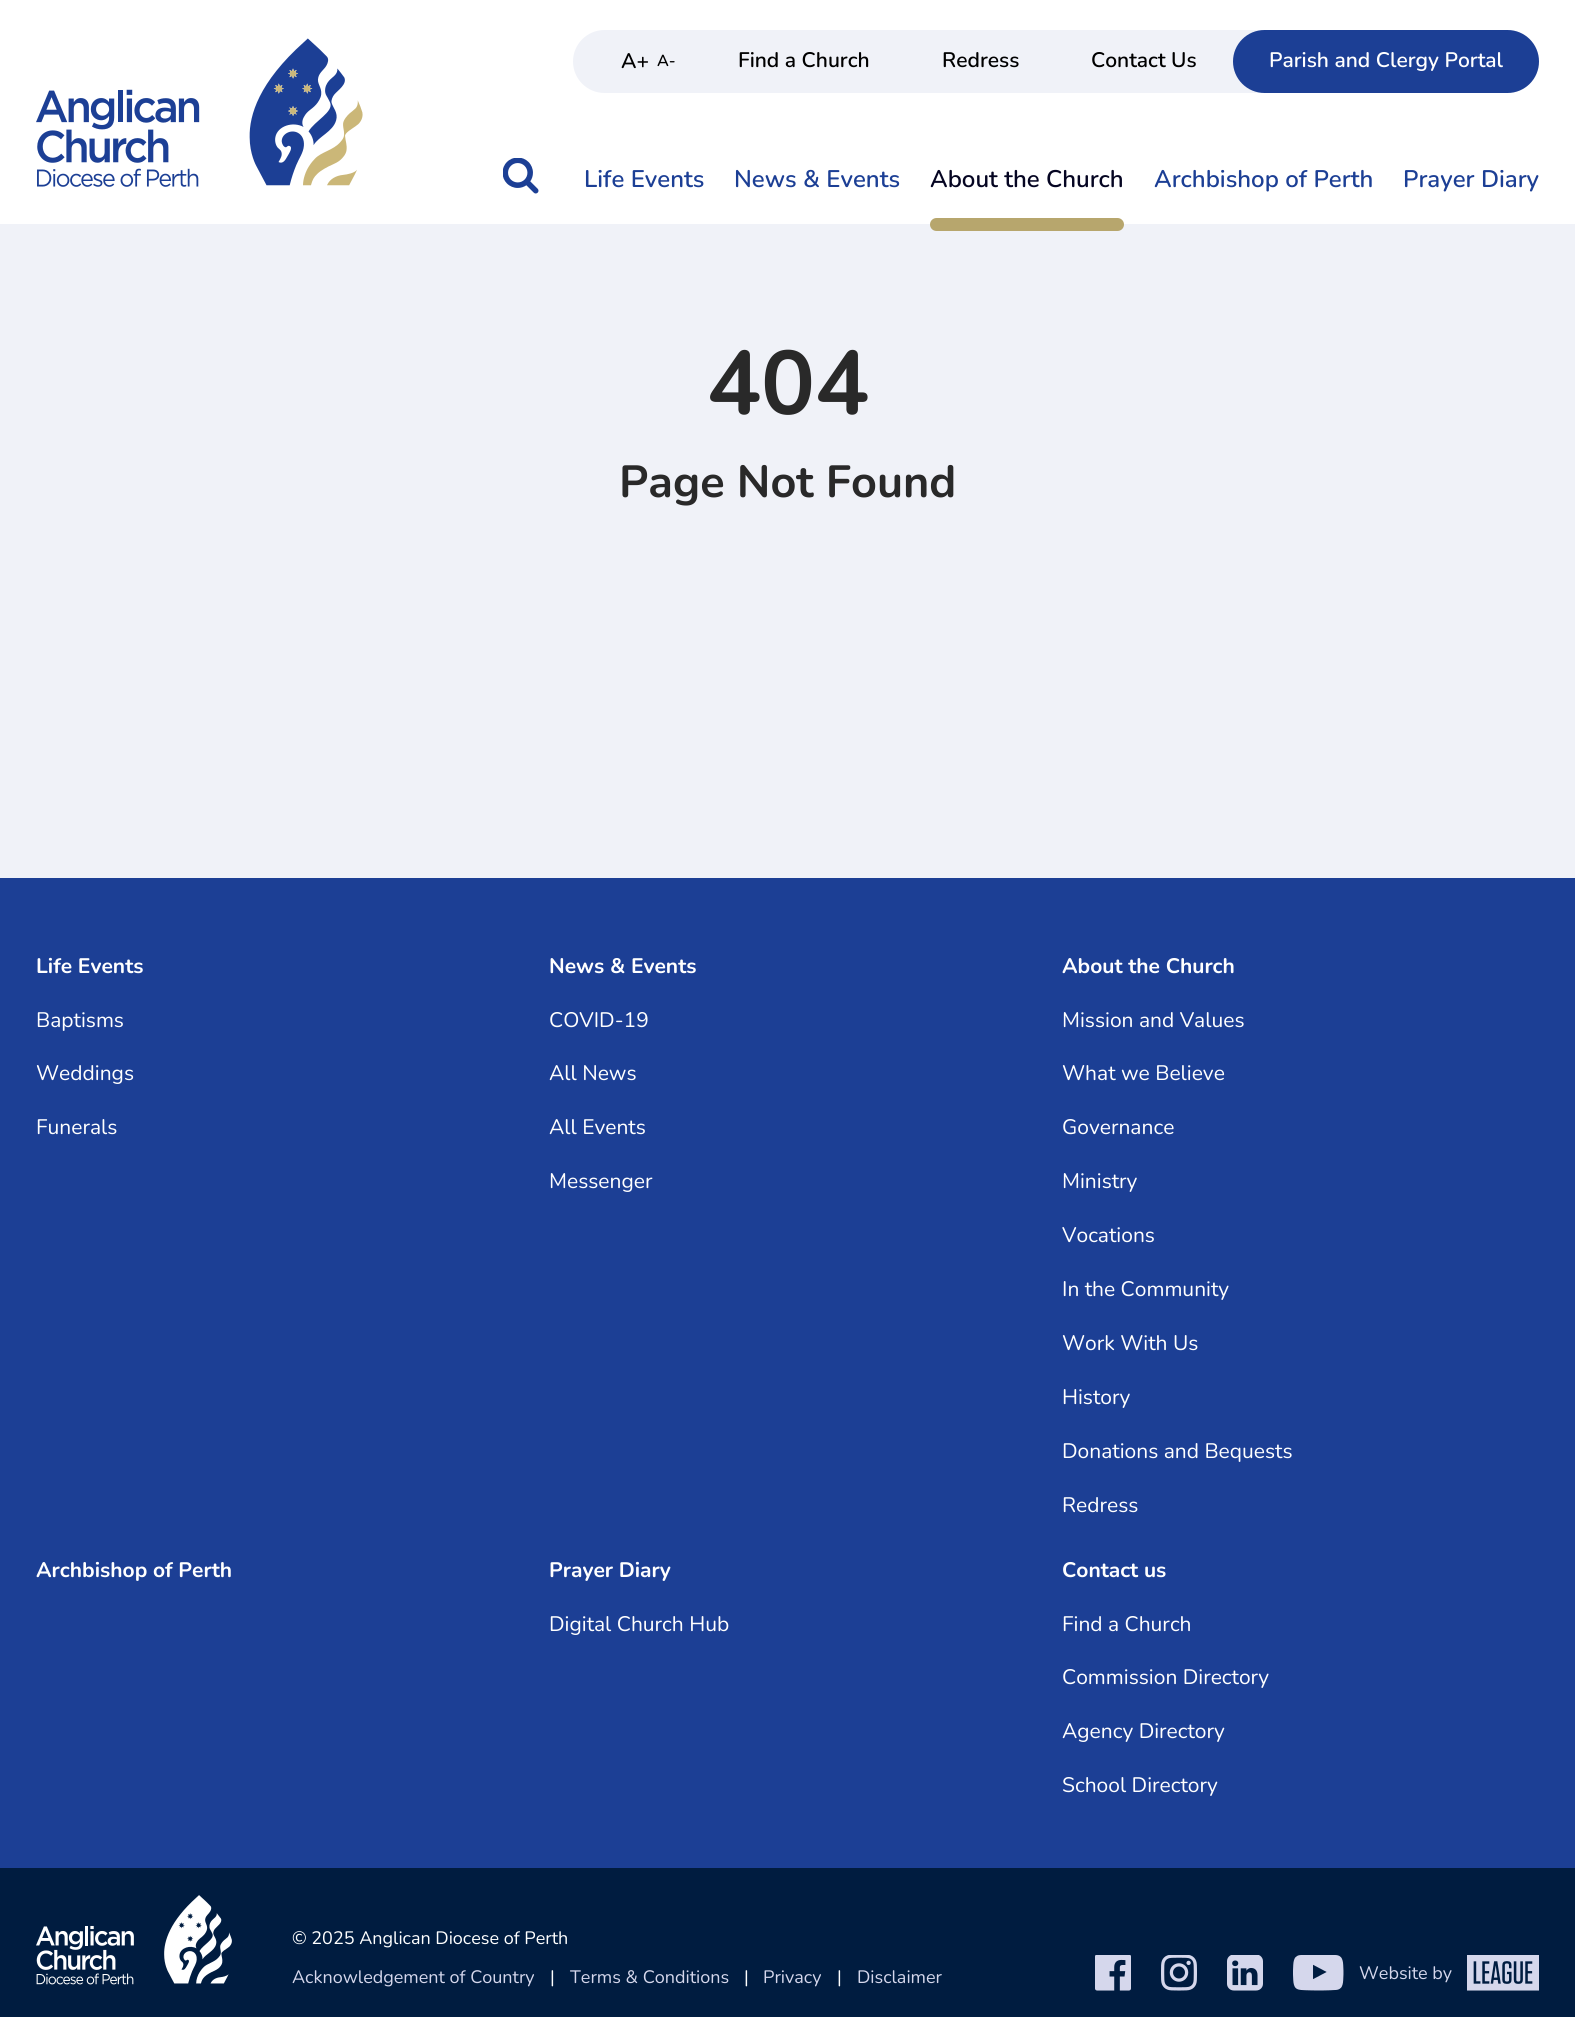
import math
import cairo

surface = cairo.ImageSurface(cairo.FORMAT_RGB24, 1575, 2017)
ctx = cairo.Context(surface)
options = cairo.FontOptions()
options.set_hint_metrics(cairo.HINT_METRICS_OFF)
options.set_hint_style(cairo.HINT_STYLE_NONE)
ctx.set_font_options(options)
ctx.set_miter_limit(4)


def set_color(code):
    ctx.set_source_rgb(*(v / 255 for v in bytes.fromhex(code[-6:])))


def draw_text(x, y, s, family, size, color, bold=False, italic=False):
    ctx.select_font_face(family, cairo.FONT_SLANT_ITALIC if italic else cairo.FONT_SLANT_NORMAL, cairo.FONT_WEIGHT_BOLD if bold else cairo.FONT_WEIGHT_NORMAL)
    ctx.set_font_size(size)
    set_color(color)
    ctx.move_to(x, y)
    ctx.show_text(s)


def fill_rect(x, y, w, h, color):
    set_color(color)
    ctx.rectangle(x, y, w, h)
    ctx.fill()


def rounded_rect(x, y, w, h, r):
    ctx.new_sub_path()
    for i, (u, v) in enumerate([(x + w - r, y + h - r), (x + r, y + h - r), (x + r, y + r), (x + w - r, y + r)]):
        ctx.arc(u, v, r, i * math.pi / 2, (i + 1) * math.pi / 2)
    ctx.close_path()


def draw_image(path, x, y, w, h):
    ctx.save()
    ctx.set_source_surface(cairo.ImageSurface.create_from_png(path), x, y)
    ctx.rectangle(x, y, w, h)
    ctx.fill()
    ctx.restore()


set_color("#f0f2f8")
ctx.paint()
fill_rect(0, 0, 1575, 224, "#ffffff")
draw_image("assets/img1.png", 36, 38, 327, 149)
set_color("#f0f2f8")
rounded_rect(573, 30, 966, 63, 31.5)
ctx.fill()
draw_text(621, 68, "A+", "Nunito SemiBold", 21, "#000000")
draw_text(657, 66, "A-", "Nunito SemiBold", 16, "#000000")
draw_text(738, 67, "Find a Church", "Nunito SemiBold", 21, "#000000")
draw_text(942, 67, "Redress", "Nunito SemiBold", 21, "#000000")
draw_text(1091, 67, "Contact Us", "Nunito SemiBold", 21, "#000000")
set_color("#1c3f95")
rounded_rect(1233, 30, 306, 63, 31.5)
ctx.fill()
draw_text(1269, 67, "Parish and Clergy Portal", "Nunito SemiBold", 21, "#ffffff")
draw_image("assets/img2.png", 503, 158, 36, 36)
draw_text(584, 187, "Life Events", "Nunito SemiBold", 24, "#1c3f95")
draw_text(734, 187, "News & Events", "Nunito SemiBold", 24, "#1c3f95")
draw_text(930, 187, "About the Church", "Nunito SemiBold", 24, "#050522")
set_color("#b7a66d")
rounded_rect(930, 218, 194, 13, 6.5)
ctx.fill()
draw_text(1154, 187, "Archbishop of Perth", "Nunito SemiBold", 24, "#1c3f95")
draw_text(1403, 187, "Prayer Diary", "Nunito SemiBold", 24, "#1c3f95")
draw_text(707, 414, "404", "Nunito", 90, "#292929", bold=True)
draw_text(619, 497, "Page Not Found", "Nunito", 45, "#292929", bold=True)
fill_rect(0, 878, 1575, 990, "#1c3f95")
draw_text(36, 973, "Life Events", "Nunito", 21, "#ffffff", bold=True)
draw_text(36, 1027, "Baptisms", "Nunito", 21, "#ffffff")
draw_text(36, 1080, "Weddings", "Nunito", 21, "#ffffff")
draw_text(36, 1134, "Funerals", "Nunito", 21, "#ffffff")
draw_text(549, 973, "News & Events", "Nunito", 21, "#ffffff", bold=True)
draw_text(549, 1027, "COVID-19", "Nunito", 21, "#ffffff")
draw_text(549, 1080, "All News", "Nunito", 21, "#ffffff")
draw_text(549, 1134, "All Events", "Nunito", 21, "#ffffff")
draw_text(549, 1188, "Messenger", "Nunito", 21, "#ffffff")
draw_text(1062, 973, "About the Church", "Nunito", 21, "#ffffff", bold=True)
draw_text(1062, 1027, "Mission and Values", "Nunito", 21, "#ffffff")
draw_text(1062, 1080, "What we Believe", "Nunito", 21, "#ffffff")
draw_text(1062, 1134, "Governance", "Nunito", 21, "#ffffff")
draw_text(1062, 1188, "Ministry", "Nunito", 21, "#ffffff")
draw_text(1062, 1242, "Vocations", "Nunito", 21, "#ffffff")
draw_text(1062, 1296, "In the Community", "Nunito", 21, "#ffffff")
draw_text(1062, 1350, "Work With Us", "Nunito", 21, "#ffffff")
draw_text(1062, 1404, "History", "Nunito", 21, "#ffffff")
draw_text(1062, 1458, "Donations and Bequests", "Nunito", 21, "#ffffff")
draw_text(1062, 1512, "Redress", "Nunito", 21, "#ffffff")
draw_text(36, 1577, "Archbishop of Perth", "Nunito", 21, "#ffffff", bold=True)
draw_text(549, 1577, "Prayer Diary", "Nunito", 21, "#ffffff", bold=True)
draw_text(549, 1631, "Digital Church Hub", "Nunito", 21, "#ffffff")
draw_text(1062, 1577, "Contact us", "Nunito", 21, "#ffffff", bold=True)
draw_text(1062, 1631, "Find a Church", "Nunito", 21, "#ffffff")
draw_text(1062, 1684, "Commission Directory", "Nunito", 21, "#ffffff")
draw_text(1062, 1738, "Agency Directory", "Nunito", 21, "#ffffff")
draw_text(1062, 1792, "School Directory", "Nunito", 21, "#ffffff")
fill_rect(0, 1868, 1575, 149, "#001c40")
draw_image("assets/img3.png", 36, 1895, 196, 90)
draw_text(292, 1944, "© 2025 Anglican Diocese of Perth", "Nunito", 18, "#ffffff")
draw_text(292, 1983, "Acknowledgement of Country", "Nunito", 18, "#d5d7ec")
draw_text(550, 1983, "|", "Nunito", 18, "#ffffff")
draw_text(570, 1983, "Terms & Conditions", "Nunito", 18, "#d5d7ec")
draw_text(744, 1983, "|", "Nunito", 18, "#ffffff")
draw_text(763, 1983, "Privacy", "Nunito", 18, "#d5d7ec")
draw_text(837, 1983, "|", "Nunito", 18, "#ffffff")
draw_text(857, 1983, "Disclaimer", "Nunito", 18, "#d5d7ec")
draw_image("assets/img4.png", 1095, 1955, 36, 36)
draw_image("assets/img5.png", 1161, 1955, 36, 36)
draw_image("assets/img6.png", 1227, 1955, 36, 36)
draw_image("assets/img7.png", 1293, 1955, 51, 36)
draw_text(1359, 1979, "Website by", "Nunito", 18, "#d5d7ec")
draw_image("assets/img8.png", 1467, 1955, 72, 36)
surface.write_to_png("output.png")
